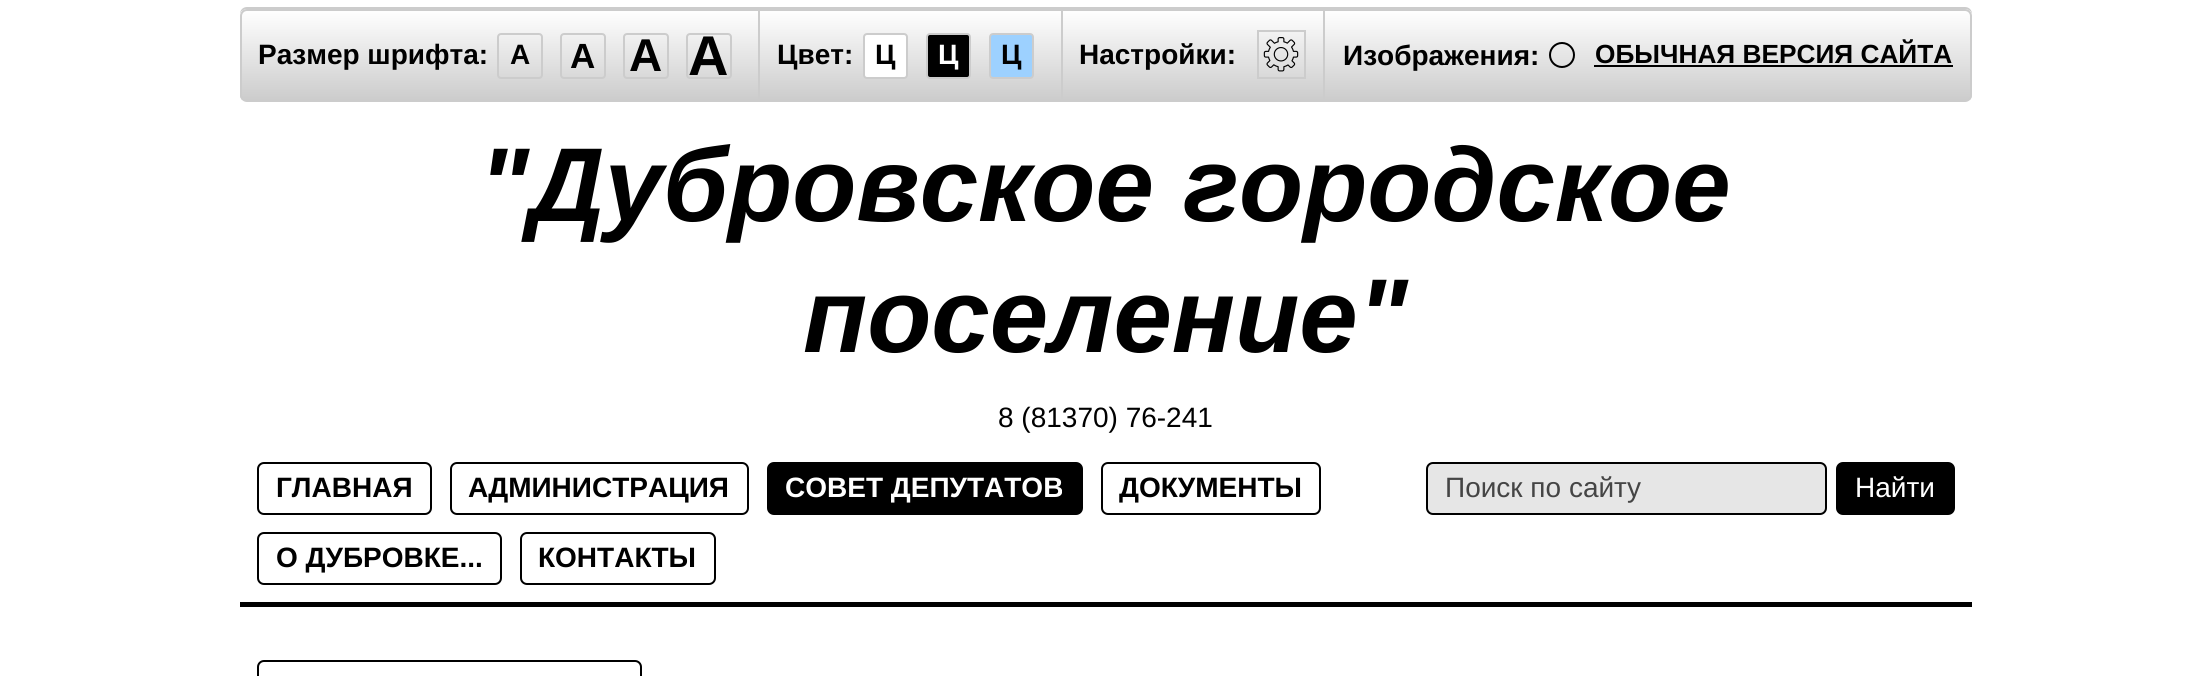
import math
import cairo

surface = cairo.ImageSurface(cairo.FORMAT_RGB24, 2210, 676)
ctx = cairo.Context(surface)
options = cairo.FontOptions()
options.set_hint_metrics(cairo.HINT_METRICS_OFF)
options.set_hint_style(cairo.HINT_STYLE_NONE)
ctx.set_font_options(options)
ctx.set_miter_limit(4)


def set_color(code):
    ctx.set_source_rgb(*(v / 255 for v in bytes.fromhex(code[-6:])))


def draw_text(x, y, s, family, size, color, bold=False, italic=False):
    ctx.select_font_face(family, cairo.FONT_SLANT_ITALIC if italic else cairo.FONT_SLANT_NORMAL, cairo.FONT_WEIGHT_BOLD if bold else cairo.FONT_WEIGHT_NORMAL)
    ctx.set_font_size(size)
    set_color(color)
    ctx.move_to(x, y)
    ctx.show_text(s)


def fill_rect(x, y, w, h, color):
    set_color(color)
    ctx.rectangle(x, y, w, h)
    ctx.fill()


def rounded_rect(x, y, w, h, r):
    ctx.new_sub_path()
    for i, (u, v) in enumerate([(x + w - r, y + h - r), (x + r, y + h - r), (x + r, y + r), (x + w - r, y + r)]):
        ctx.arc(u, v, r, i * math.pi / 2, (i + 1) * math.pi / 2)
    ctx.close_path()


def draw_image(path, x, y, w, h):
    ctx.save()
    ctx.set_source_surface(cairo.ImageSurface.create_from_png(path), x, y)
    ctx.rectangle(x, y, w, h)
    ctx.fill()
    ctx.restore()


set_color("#ffffff")
ctx.paint()
fill_rect(240, 602, 1732, 5, "#000000")
set_color("#cccccc")
ctx.new_path()
ctx.move_to(247, 7)
ctx.curve_to(243, 7, 240, 10, 240, 14)
ctx.curve_to(241, 11, 244, 9, 247, 9)
ctx.line_to(1965, 9)
ctx.curve_to(1968, 9, 1971, 11, 1972, 14)
ctx.curve_to(1972, 10, 1969, 7, 1965, 7)
ctx.close_path()
ctx.fill()
ctx.save()
rounded_rect(240, 9, 1732, 93, 7)
ctx.clip()
gradient = cairo.LinearGradient(1106, 10, 1106, 100)
gradient.add_color_stop_rgba(0, 1, 1, 1, 1)
gradient.add_color_stop_rgba(1, 0.8, 0.8, 0.8, 1)
ctx.set_source(gradient)
ctx.rectangle(240, 11, 1732, 89)
ctx.fill()
ctx.restore()
rounded_rect(241, 10, 1730, 91, 6)
ctx.stroke()
fill_rect(758, 11, 2, 89, "#cccccc")
draw_text(258, 64, "Размер шрифта:", "Liberation Sans", 28, "#000000", bold=True)
rounded_rect(498, 34, 44, 44, 3)
set_color("#cccccc")
ctx.stroke()
draw_text(510, 64, "A", "Liberation Sans", 28, "#000000", bold=True)
rounded_rect(561, 34, 44, 44, 3)
set_color("#cccccc")
ctx.stroke()
draw_text(570, 68, "A", "Liberation Sans", 35, "#000000", bold=True)
rounded_rect(624, 34, 44, 44, 3)
set_color("#cccccc")
ctx.stroke()
draw_text(629, 71, "A", "Liberation Sans", 46, "#000000", bold=True)
rounded_rect(687, 34, 44, 44, 3)
set_color("#cccccc")
ctx.stroke()
draw_text(688, 75, "A", "Liberation Sans", 56, "#000000", bold=True)
fill_rect(1061, 11, 2, 89, "#cccccc")
draw_text(777, 64, "Цвет:", "Liberation Sans", 28, "#000000", bold=True)
set_color("#ffffff")
rounded_rect(864, 34, 43, 44, 3)
ctx.fill_preserve()
set_color("#cccccc")
ctx.stroke()
draw_text(875, 64, "Ц", "Liberation Sans", 28, "#000000", bold=True)
rounded_rect(927, 34, 43, 44, 3)
ctx.fill_preserve()
set_color("#cccccc")
ctx.stroke()
draw_text(938, 64, "Ц", "Liberation Sans", 28, "#ffffff", bold=True)
set_color("#9dd1ff")
rounded_rect(990, 34, 43, 44, 3)
ctx.fill_preserve()
set_color("#cccccc")
ctx.stroke()
draw_text(1001, 64, "Ц", "Liberation Sans", 28, "#000000", bold=True)
draw_text(1079, 64, "Настройки:", "Liberation Sans", 28, "#000000", bold=True)
ctx.rectangle(1258, 31, 47, 47)
set_color("#cccccc")
ctx.stroke()
draw_image("assets/img1.png", 1263, 37, 36, 35)
fill_rect(1323, 11, 2, 89, "#cccccc")
draw_text(1343, 65, "Изображения:", "Liberation Sans", 28, "#000000", bold=True)
ctx.new_path()
ctx.arc(1562, 55, 12, 0, 2 * math.pi)
ctx.stroke()
draw_text(1595, 63, "ОБЫЧНАЯ ВЕРСИЯ САЙТА", "Liberation Sans", 26.25, "#000000", bold=True)
fill_rect(1594, 65, 359, 2, "#000000")
draw_text(479, 221, "\"Дубровское городское", "Liberation Sans", 105, "#000000", bold=True, italic=True)
draw_text(803, 352, "поселение\"", "Liberation Sans", 105, "#000000", bold=True, italic=True)
draw_text(998, 427, "8 (81370) 76-241", "Liberation Sans", 28, "#000000")
rounded_rect(258, 463, 173, 51, 6)
ctx.stroke()
draw_text(276, 497, "ГЛАВНАЯ", "Liberation Sans", 28, "#000000", bold=True)
rounded_rect(451, 463, 297, 51, 6)
ctx.stroke()
draw_text(468, 497, "АДМИНИСТРАЦИЯ", "Liberation Sans", 28, "#000000", bold=True)
rounded_rect(768, 463, 314, 51, 6)
ctx.fill_preserve()
ctx.stroke()
draw_text(785, 497, "СОВЕТ ДЕПУТАТОВ", "Liberation Sans", 28, "#ffffff", bold=True)
rounded_rect(1102, 463, 218, 51, 6)
set_color("#000000")
ctx.stroke()
draw_text(1119, 497, "ДОКУМЕНТЫ", "Liberation Sans", 28, "#000000", bold=True)
rounded_rect(258, 533, 243, 51, 6)
ctx.stroke()
draw_text(276, 567, "О ДУБРОВКЕ...", "Liberation Sans", 28, "#000000", bold=True)
rounded_rect(521, 533, 194, 51, 6)
ctx.stroke()
draw_text(538, 567, "КОНТАКТЫ", "Liberation Sans", 28, "#000000", bold=True)
set_color("#e6e6e6")
rounded_rect(1427, 463, 399, 51, 6)
ctx.fill_preserve()
set_color("#000000")
ctx.stroke()
draw_text(1445, 497, "Поиск по сайту", "Liberation Sans", 28, "#454545")
set_color("#000000")
rounded_rect(1837, 463, 117, 51, 6)
ctx.fill_preserve()
ctx.stroke()
draw_text(1855, 497, "Найти", "Liberation Sans", 28, "#ffffff")
rounded_rect(258, 661, 383, 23, 6)
set_color("#000000")
ctx.stroke()
surface.write_to_png("output.png")
